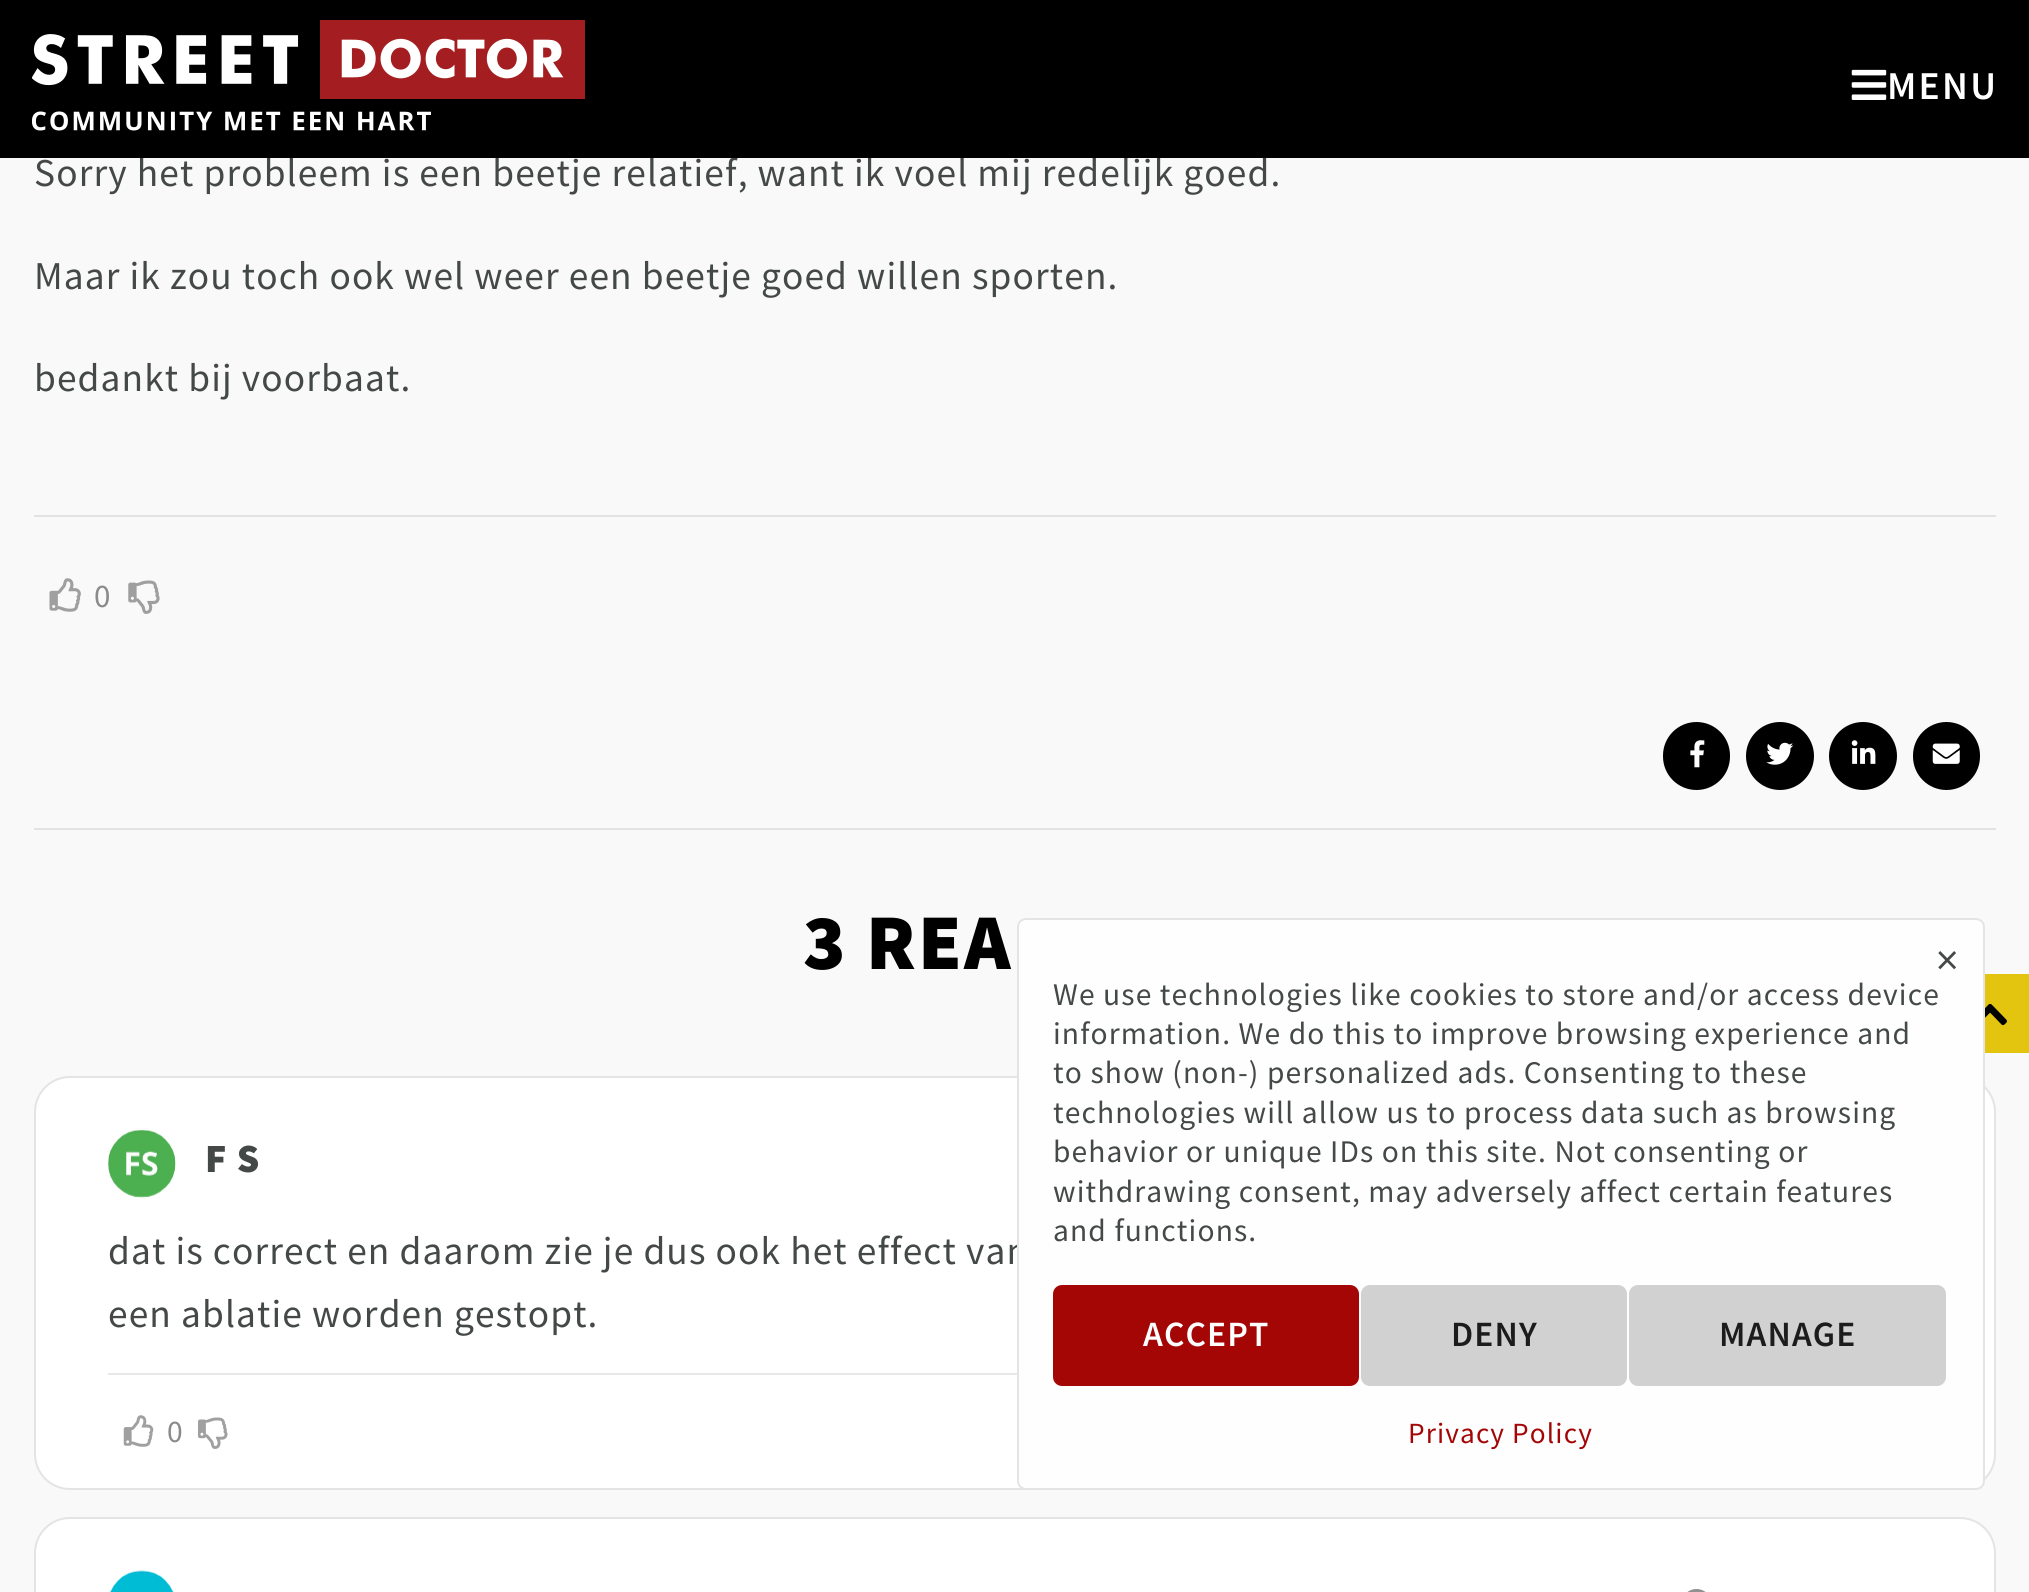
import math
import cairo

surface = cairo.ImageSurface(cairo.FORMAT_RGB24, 2029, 1592)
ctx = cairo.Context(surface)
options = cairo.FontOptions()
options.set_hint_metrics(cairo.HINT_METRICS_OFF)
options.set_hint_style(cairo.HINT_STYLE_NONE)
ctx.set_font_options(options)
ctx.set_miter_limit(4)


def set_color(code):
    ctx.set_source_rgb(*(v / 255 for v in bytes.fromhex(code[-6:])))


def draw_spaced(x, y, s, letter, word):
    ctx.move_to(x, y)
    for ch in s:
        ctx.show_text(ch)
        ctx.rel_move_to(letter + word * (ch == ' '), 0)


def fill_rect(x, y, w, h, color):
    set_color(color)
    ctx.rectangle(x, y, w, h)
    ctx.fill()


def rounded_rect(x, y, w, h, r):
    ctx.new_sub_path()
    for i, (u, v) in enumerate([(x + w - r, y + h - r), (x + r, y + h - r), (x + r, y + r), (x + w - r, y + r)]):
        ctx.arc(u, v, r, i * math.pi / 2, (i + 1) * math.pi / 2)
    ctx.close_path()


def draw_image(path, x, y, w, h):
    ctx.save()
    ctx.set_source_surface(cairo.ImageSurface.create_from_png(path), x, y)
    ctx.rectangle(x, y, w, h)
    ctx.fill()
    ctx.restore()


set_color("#f9f9f9")
ctx.paint()
ctx.select_font_face("Source Sans Pro")
ctx.set_font_size(39.4)
set_color("#444948")
draw_spaced(34, 186, "Sorry het probleem is een beetje relatief, want ik voel mij redelijk goed.", 1.12, 0)
fill_rect(0, 0, 2029, 158, "#000000")
draw_image("assets/img1.png", 32, 20, 553, 111)
draw_image("assets/img2.png", 1851, 69, 36, 31)
ctx.select_font_face("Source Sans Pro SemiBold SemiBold")
set_color("#ffffff")
draw_spaced(1887, 99, "MENU", 2.25, 0)
ctx.select_font_face("Source Sans Pro")
set_color("#444948")
draw_spaced(34, 289, "Maar ik zou toch ook wel weer een beetje goed willen sporten.", 1.12, 0)
draw_spaced(34, 391, "bedankt bij voorbaat.", 1.12, 0)
fill_rect(34, 515, 1962, 2, "#e3e3e3")
draw_image("assets/img3.png", 49, 578, 32, 34)
ctx.set_font_size(33)
set_color("#8a8a8a")
draw_spaced(94, 607, "0", 1.12, 0)
draw_image("assets/img4.png", 128, 580, 32, 34)
set_color("#000000")
rounded_rect(1663, 722, 67, 68, 33.5)
ctx.fill()
draw_image("assets/img5.png", 1690, 740, 15, 28)
ctx.arc(1780, 756, 34, 0, 2 * math.pi)
ctx.fill()
draw_image("assets/img6.png", 1766, 742, 28, 23)
ctx.arc(1863, 756, 34, 0, 2 * math.pi)
ctx.fill()
draw_image("assets/img7.png", 1851, 740, 25, 24)
rounded_rect(1913, 722, 67, 68, 33.5)
ctx.fill()
draw_image("assets/img8.png", 1932, 743, 28, 21)
fill_rect(34, 828, 1962, 2, "#e3e3e3")
ctx.select_font_face("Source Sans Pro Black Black")
ctx.set_font_size(79)
set_color("#000000")
draw_spaced(803, 969, "3 REA", 2.25, 0)
set_color("#ffffff")
rounded_rect(35, 1077, 1960, 412, 35)
ctx.fill_preserve()
set_color("#e4e4e4")
ctx.stroke()
draw_image("assets/img9.png", 108, 1130, 68, 68)
ctx.set_font_size(40)
set_color("#444948")
draw_spaced(205, 1172, "F S", 1.12, 0)
ctx.select_font_face("Source Sans Pro")
ctx.set_font_size(39.4)
draw_spaced(108, 1264, "dat is correct en daarom zie je dus ook het effect van", 1.12, 0)
draw_spaced(108, 1327, "een ablatie worden gestopt.", 1.12, 0)
fill_rect(108, 1373, 909, 2, "#e8e8e8")
draw_image("assets/img10.png", 123, 1415, 31, 32)
ctx.set_font_size(31.5)
set_color("#8a8a8a")
draw_spaced(167, 1442, "0", 1.12, 0)
draw_image("assets/img11.png", 198, 1417, 30, 32)
set_color("#ffffff")
rounded_rect(35, 1518, 1960, 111, 35)
ctx.fill_preserve()
set_color("#e4e4e4")
ctx.stroke()
draw_image("assets/img12.png", 110, 1570, 64, 22)
draw_image("assets/img13.png", 1687, 1589, 19, 3)
set_color("#fefefe")
rounded_rect(1018, 919, 966, 570, 8)
ctx.fill_preserve()
set_color("#e4e4e4")
ctx.stroke()
ctx.set_font_size(45)
set_color("#444948")
draw_spaced(1936, 975, "×", 1.12, 0)
ctx.set_font_size(31.5)
draw_spaced(1053, 1005, "We use technologies like cookies to store and/or access device", 1.12, 0)
draw_spaced(1053, 1044, "information. We do this to improve browsing experience and", 1.12, 0)
draw_spaced(1053, 1083, "to show (non-) personalized ads. Consenting to these", 1.12, 0)
draw_spaced(1053, 1123, "technologies will allow us to process data such as browsing", 1.12, 0)
draw_spaced(1053, 1162, "behavior or unique IDs on this site. Not consenting or", 1.12, 0)
draw_spaced(1053, 1202, "withdrawing consent, may adversely affect certain features", 1.12, 0)
draw_spaced(1053, 1241, "and functions.", 1.12, 0)
set_color("#a40606")
rounded_rect(1053, 1285, 306, 101, 9)
ctx.fill()
ctx.select_font_face("Source Sans Pro SemiBold SemiBold")
ctx.set_font_size(35.5)
set_color("#ffffff")
draw_spaced(1143, 1346, "ACCEPT", 1.12, 0)
set_color("#d1d1d1")
rounded_rect(1361, 1285, 266, 101, 9)
ctx.fill()
set_color("#1c1c1c")
draw_spaced(1451, 1346, "DENY", 1.12, 0)
set_color("#d1d1d1")
rounded_rect(1629, 1285, 317, 101, 9)
ctx.fill()
set_color("#1c1c1c")
draw_spaced(1719, 1346, "MANAGE", 1.12, 0)
ctx.select_font_face("Source Sans Pro")
ctx.set_font_size(29.25)
set_color("#a40606")
draw_spaced(1408, 1443, "Privacy Policy", 1.12, 0)
fill_rect(1985, 974, 44, 79, "#e3c40f")
draw_image("assets/img14.png", 1985, 1004, 22, 22)
surface.write_to_png("output.png")
